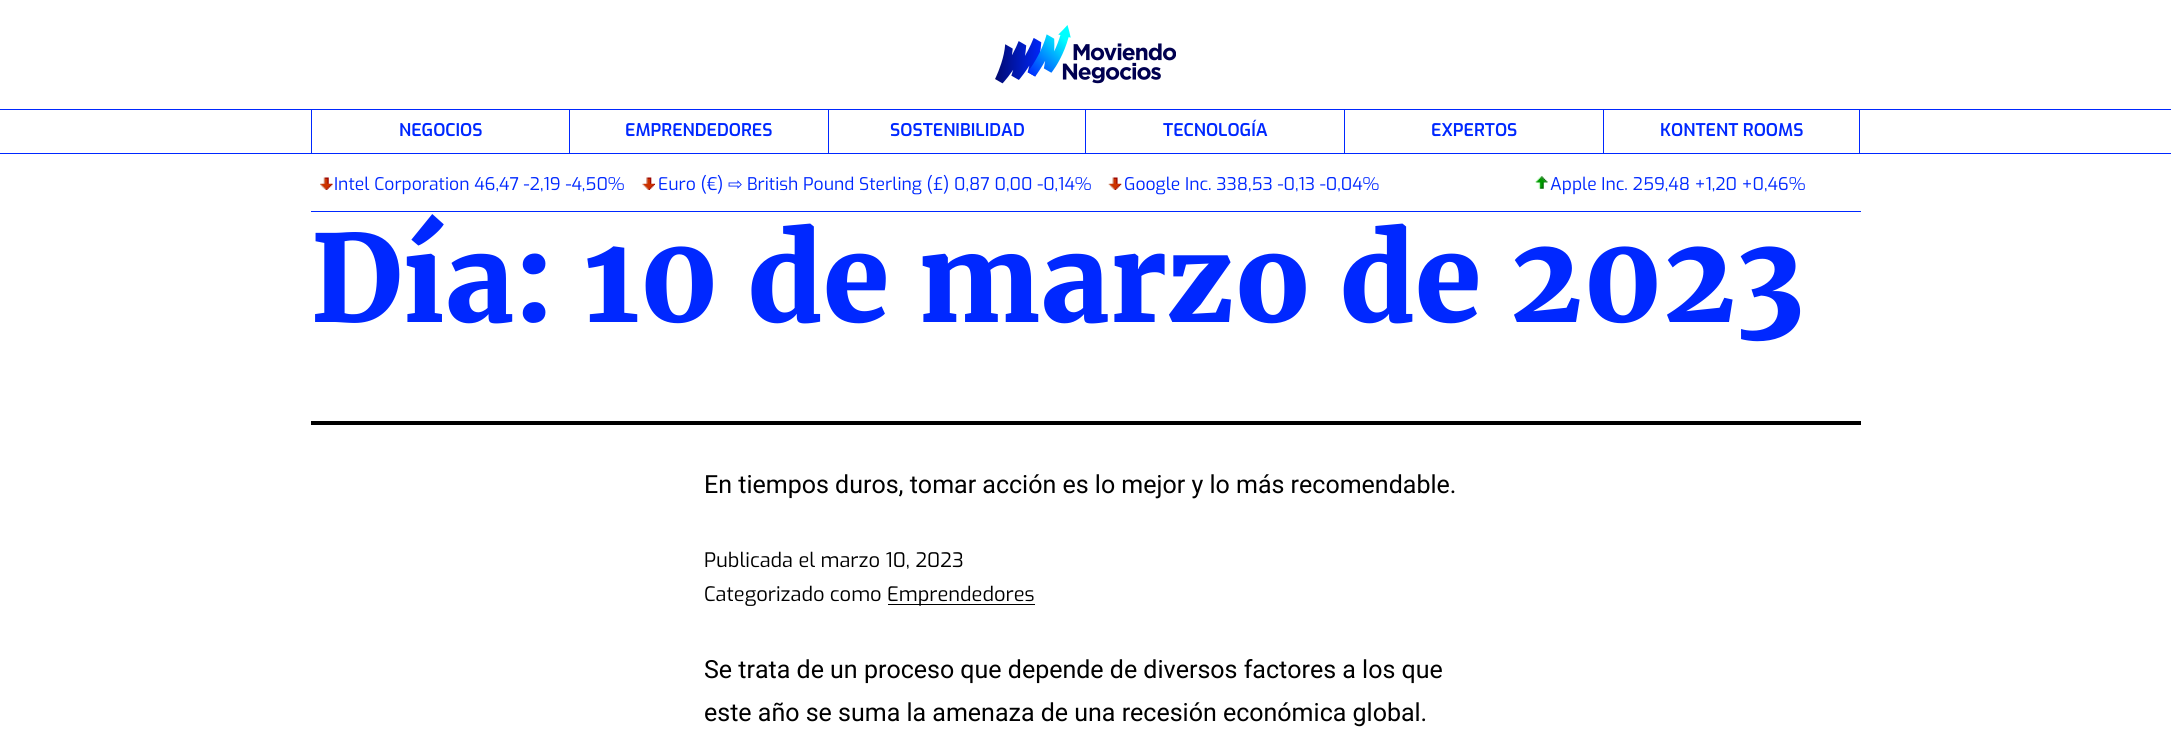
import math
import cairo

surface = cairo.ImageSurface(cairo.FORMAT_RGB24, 2171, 755)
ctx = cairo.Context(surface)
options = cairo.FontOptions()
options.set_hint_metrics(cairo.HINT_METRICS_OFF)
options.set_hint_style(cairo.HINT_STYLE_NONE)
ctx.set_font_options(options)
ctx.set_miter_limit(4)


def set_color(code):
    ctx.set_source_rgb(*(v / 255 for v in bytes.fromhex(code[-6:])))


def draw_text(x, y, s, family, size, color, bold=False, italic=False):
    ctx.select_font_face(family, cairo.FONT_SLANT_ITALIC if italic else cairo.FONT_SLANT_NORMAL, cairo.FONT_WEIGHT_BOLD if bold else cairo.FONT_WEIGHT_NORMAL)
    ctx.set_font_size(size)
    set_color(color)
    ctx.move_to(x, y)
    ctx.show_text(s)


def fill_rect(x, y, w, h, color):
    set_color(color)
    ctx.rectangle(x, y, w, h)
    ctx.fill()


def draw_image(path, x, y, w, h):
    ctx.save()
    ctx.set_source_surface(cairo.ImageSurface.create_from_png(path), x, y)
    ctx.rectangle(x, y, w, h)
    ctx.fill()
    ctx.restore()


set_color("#ffffff")
ctx.paint()
draw_image("assets/img1.png", 995, 25, 181, 59)
fill_rect(0, 109, 2171, 1, "#0028ff")
fill_rect(0, 153, 2171, 1, "#0028ff")
fill_rect(311, 110, 1, 43, "#0028ff")
draw_text(399, 136, "NEGOCIOS", "Exo SemiBold", 17.5, "#0028ff")
fill_rect(569, 110, 1, 43, "#0028ff")
draw_text(625, 136, "EMPRENDEDORES", "Exo SemiBold", 17.5, "#0028ff")
fill_rect(828, 110, 1, 43, "#0028ff")
draw_text(890, 136, "SOSTENIBILIDAD", "Exo SemiBold", 17.5, "#0028ff")
fill_rect(1085, 110, 1, 43, "#0028ff")
draw_text(1163, 136, "TECNOLOGÍA", "Exo SemiBold", 17.5, "#0028ff")
fill_rect(1344, 110, 1, 43, "#0028ff")
draw_text(1431, 136, "EXPERTOS", "Exo SemiBold", 17.5, "#0028ff")
fill_rect(1859, 110, 1, 43, "#0028ff")
fill_rect(1603, 110, 1, 43, "#0028ff")
draw_text(1660, 136, "KONTENT ROOMS", "Exo SemiBold", 17.5, "#0028ff")
draw_image("assets/img2.png", 320, 177, 13, 13)
draw_text(334, 190, "Intel Corporation 46,47 -2,19 -4,50%", "Exo", 17.5, "#0028ff")
draw_image("assets/img3.png", 642, 177, 13, 13)
draw_text(658, 190, "Euro (€)", "Exo", 17.5, "#0028ff")
draw_text(728, 190, "⇨", "DejaVu Sans", 17.5, "#0028ff")
draw_text(747, 190, "British Pound Sterling (£) 0,87 0,00 -0,14%", "Exo", 17.5, "#0028ff")
draw_image("assets/img4.png", 1108, 177, 14, 13)
draw_text(1124, 190, "Google Inc. 338,53 -0,13 -0,04%", "Exo", 17.5, "#0028ff")
draw_image("assets/img5.png", 1535, 176, 13, 13)
draw_text(1550, 190, "Apple Inc. 259,48 +1,20 +0,46%", "Exo", 17.5, "#0028ff")
fill_rect(311, 211, 1550, 1, "#0028ff")
fill_rect(311, 421, 1550, 4, "#000000")
draw_text(311, 322, "Día: 10 de marzo de 2023", "Merriweather Black", 120, "#0028ff")
draw_text(704, 493, "En tiempos duros, tomar acción es lo mejor y lo más recomendable.", "Roboto", 25, "#000000")
draw_text(704, 567, "Publicada el marzo 10, 2023", "Exo", 20, "#000000")
draw_text(704, 601, "Categorizado como", "Exo", 20, "#000000")
fill_rect(888, 604, 147, 1, "#000000")
draw_text(887, 601, "Emprendedores", "Exo", 20, "#000000")
draw_text(704, 678, "Se trata de un proceso que depende de diversos factores a los que", "Roboto", 25, "#000000")
draw_text(704, 721, "este año se suma la amenaza de una recesión económica global.", "Roboto", 25, "#000000")
surface.write_to_png("output.png")
